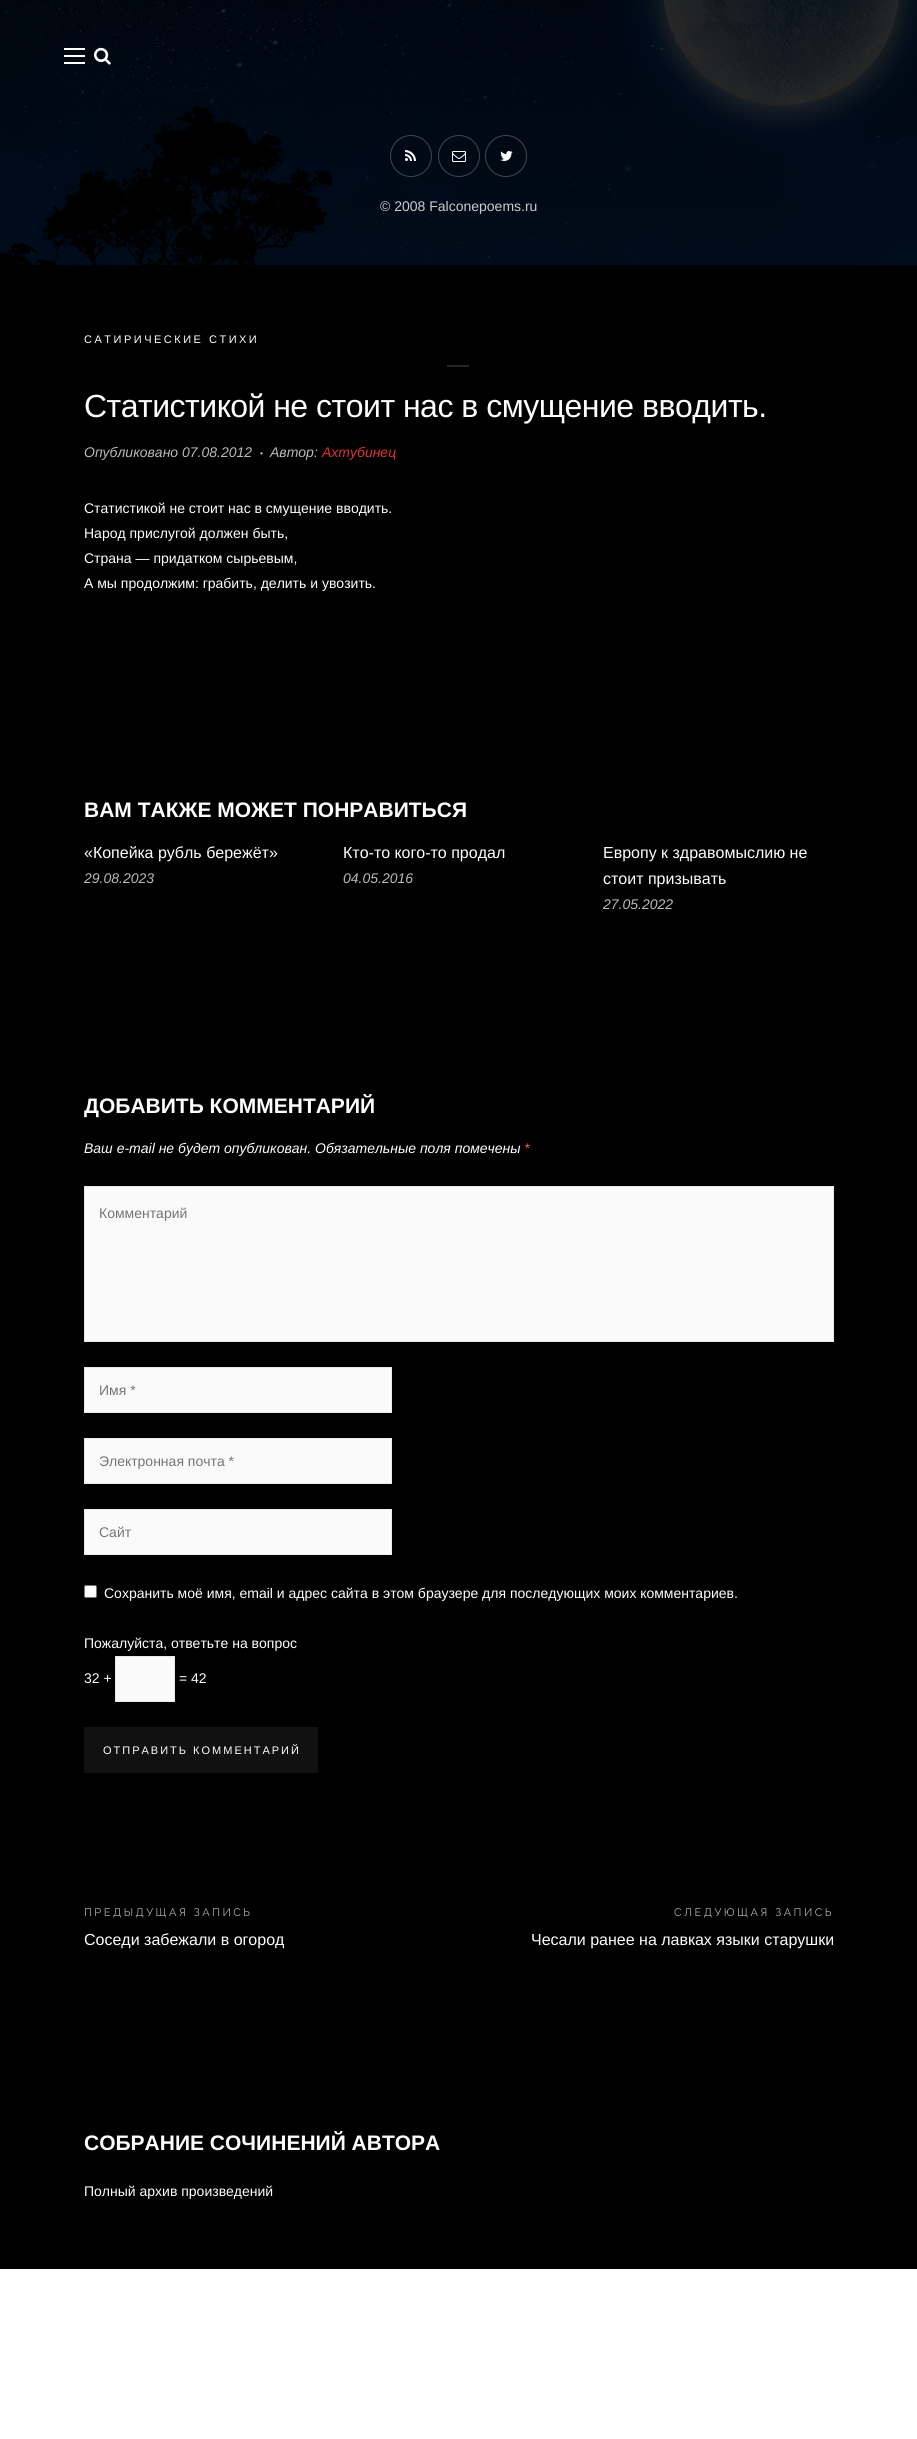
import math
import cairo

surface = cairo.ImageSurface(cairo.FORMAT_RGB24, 917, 2439)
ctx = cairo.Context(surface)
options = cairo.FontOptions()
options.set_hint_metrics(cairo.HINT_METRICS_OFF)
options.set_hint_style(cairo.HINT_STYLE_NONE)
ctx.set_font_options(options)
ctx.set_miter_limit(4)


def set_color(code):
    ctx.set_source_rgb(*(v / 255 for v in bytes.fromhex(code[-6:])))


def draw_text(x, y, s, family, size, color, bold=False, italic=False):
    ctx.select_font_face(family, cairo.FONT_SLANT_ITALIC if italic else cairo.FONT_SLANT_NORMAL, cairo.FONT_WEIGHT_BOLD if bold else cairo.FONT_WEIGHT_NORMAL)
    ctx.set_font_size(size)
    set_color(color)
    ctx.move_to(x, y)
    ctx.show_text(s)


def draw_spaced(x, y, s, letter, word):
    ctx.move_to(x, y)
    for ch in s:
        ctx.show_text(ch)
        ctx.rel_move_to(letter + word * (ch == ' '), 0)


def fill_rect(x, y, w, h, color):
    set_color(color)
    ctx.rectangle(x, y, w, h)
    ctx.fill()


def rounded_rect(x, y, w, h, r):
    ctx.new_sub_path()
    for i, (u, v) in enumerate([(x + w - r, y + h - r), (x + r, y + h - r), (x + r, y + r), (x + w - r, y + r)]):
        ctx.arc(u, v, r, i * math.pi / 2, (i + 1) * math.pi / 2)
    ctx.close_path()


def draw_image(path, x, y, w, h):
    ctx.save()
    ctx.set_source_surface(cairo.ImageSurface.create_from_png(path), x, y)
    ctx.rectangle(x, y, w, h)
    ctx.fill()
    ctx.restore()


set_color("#ffffff")
ctx.paint()
draw_image("assets/img1.png", 0, 0, 917, 265)
fill_rect(64, 55, 21, 2, "#ffffff")
fill_rect(64, 48, 21, 2, "#ffffff")
fill_rect(64, 62, 21, 2, "#ffffff")
draw_image("assets/img2.png", 94, 47, 17, 18)
ctx.arc(411, 156, 20.5, 0, 2 * math.pi)
ctx.set_source_rgba(1, 1, 1, 0.25)
ctx.set_line_width(1)
ctx.stroke()
draw_image("assets/img3.png", 405, 150, 11, 11)
ctx.arc(459, 156, 20.5, 0, 2 * math.pi)
ctx.stroke()
draw_image("assets/img4.png", 452, 151, 14, 11)
ctx.arc(506, 156, 20.5, 0, 2 * math.pi)
ctx.stroke()
draw_image("assets/img5.png", 500, 151, 13, 10)
draw_text(380, 211, "© 2008 Falconepoems.ru", "Liberation Sans", 14, "#cccccc")
fill_rect(0, 265, 917, 2004, "#000000")
ctx.set_font_size(11)
set_color("#ffffff")
draw_spaced(84, 343, "САТИРИЧЕСКИЕ СТИХИ", 2.5, 0)
fill_rect(447, 365, 22, 2, "#262626")
ctx.set_font_size(32)
set_color("#ffffff")
draw_spaced(84, 417, "Статистикой не стоит нас в смущение вводить.", -0.5, 0)
draw_text(84, 457, "Опубликовано 07.08.2012", "Liberation Sans", 14, "#bababa", italic=True)
draw_text(260, 456, "•", "Liberation Sans", 8, "#d5d5d5", italic=True)
draw_text(270, 457, "Автор:", "Liberation Sans", 14, "#bababa", italic=True)
draw_text(322, 457, "Ахтубинец", "Liberation Sans", 14, "#dd3333", italic=True)
draw_text(84, 513, "Статистикой не стоит нас в смущение вводить.", "Liberation Sans", 14, "#ffffff")
draw_text(84, 538, "Народ прислугой должен быть,", "Liberation Sans", 14, "#ffffff")
draw_text(84, 563, "Страна — придатком сырьевым,", "Liberation Sans", 14, "#ffffff")
draw_text(84, 588, "А мы продолжим: грабить, делить и увозить.", "Liberation Sans", 14, "#ffffff")
draw_text(84, 817, "ВАМ ТАКЖЕ МОЖЕТ ПОНРАВИТЬСЯ", "Liberation Sans", 21, "#ffffff", bold=True)
draw_text(84, 858, "«Копейка рубль бережёт»", "Liberation Sans", 16, "#ffffff")
draw_text(84, 883, "29.08.2023", "Liberation Sans", 14, "#bababa", italic=True)
draw_text(343, 858, "Кто-то кого-то продал", "Liberation Sans", 16, "#ffffff")
draw_text(343, 883, "04.05.2016", "Liberation Sans", 14, "#bababa", italic=True)
draw_text(603, 858, "Европу к здравомыслию не", "Liberation Sans", 16, "#ffffff")
draw_text(603, 884, "стоит призывать", "Liberation Sans", 16, "#ffffff")
draw_text(603, 909, "27.05.2022", "Liberation Sans", 14, "#bababa", italic=True)
draw_text(84, 1113, "ДОБАВИТЬ КОММЕНТАРИЙ", "Liberation Sans", 21, "#ffffff", bold=True)
draw_text(84, 1153, "Ваш e-mail не будет опубликован. Обязательные поля помечены", "Liberation Sans", 14, "#ffffff", italic=True)
draw_text(524, 1153, "*", "Liberation Sans", 14, "#ff5a3a", italic=True)
set_color("#fafafa")
ctx.rectangle(84.5, 1186.5, 749, 155)
ctx.fill_preserve()
set_color("#eaeaea")
ctx.stroke()
draw_text(99, 1218, "Комментарий", "Liberation Sans", 14, "#757575")
set_color("#fafafa")
ctx.rectangle(84.5, 1367.5, 307, 45)
ctx.fill_preserve()
set_color("#eaeaea")
ctx.stroke()
draw_text(99, 1395, "Имя *", "Liberation Sans", 14, "#757575")
set_color("#fafafa")
ctx.rectangle(84.5, 1438.5, 307, 45)
ctx.fill_preserve()
set_color("#eaeaea")
ctx.stroke()
draw_text(99, 1466, "Электронная почта *", "Liberation Sans", 14, "#757575")
set_color("#fafafa")
ctx.rectangle(84.5, 1509.5, 307, 45)
ctx.fill_preserve()
set_color("#eaeaea")
ctx.stroke()
draw_text(99, 1537, "Сайт", "Liberation Sans", 14, "#757575")
set_color("#ffffff")
rounded_rect(84.5, 1585.5, 12, 12, 1.5)
ctx.fill_preserve()
set_color("#767676")
ctx.stroke()
draw_text(104, 1598, "Сохранить моё имя, email и адрес сайта в этом браузере для последующих моих комментариев.", "Liberation Sans", 14, "#ffffff")
draw_text(84, 1648, "Пожалуйста, ответьте на вопрос", "Liberation Sans", 14, "#ffffff")
draw_text(84, 1683, "32 +", "Liberation Sans", 14, "#ffffff")
set_color("#fafafa")
ctx.rectangle(115.5, 1656.5, 59, 45)
ctx.fill_preserve()
set_color("#eaeaea")
ctx.stroke()
draw_text(179, 1683, "= 42", "Liberation Sans", 14, "#ffffff")
fill_rect(84, 1727, 234, 46, "#111111")
ctx.set_font_size(11)
set_color("#ffffff")
draw_spaced(103, 1754, "ОТПРАВИТЬ КОММЕНТАРИЙ", 2, 0)
ctx.select_font_face("Raleway")
set_color("#b1b1b1")
draw_spaced(84, 1916, "ПРЕДЫДУЩАЯ ЗАПИСЬ", 2.5, 0)
draw_text(84, 1945, "Соседи забежали в огород", "Liberation Sans", 16, "#ffffff")
ctx.select_font_face("Raleway")
ctx.set_font_size(11)
set_color("#b1b1b1")
draw_spaced(674, 1916, "СЛЕДУЮЩАЯ ЗАПИСЬ", 2.5, 0)
draw_text(531, 1945, "Чесали ранее на лавках языки старушки", "Liberation Sans", 16, "#ffffff")
draw_text(84, 2150, "СОБРАНИЕ СОЧИНЕНИЙ АВТОРА", "Liberation Sans", 21, "#ffffff", bold=True)
draw_text(84, 2196, "Полный архив произведений", "Liberation Sans", 14, "#ffffff")
surface.write_to_png("output.png")
